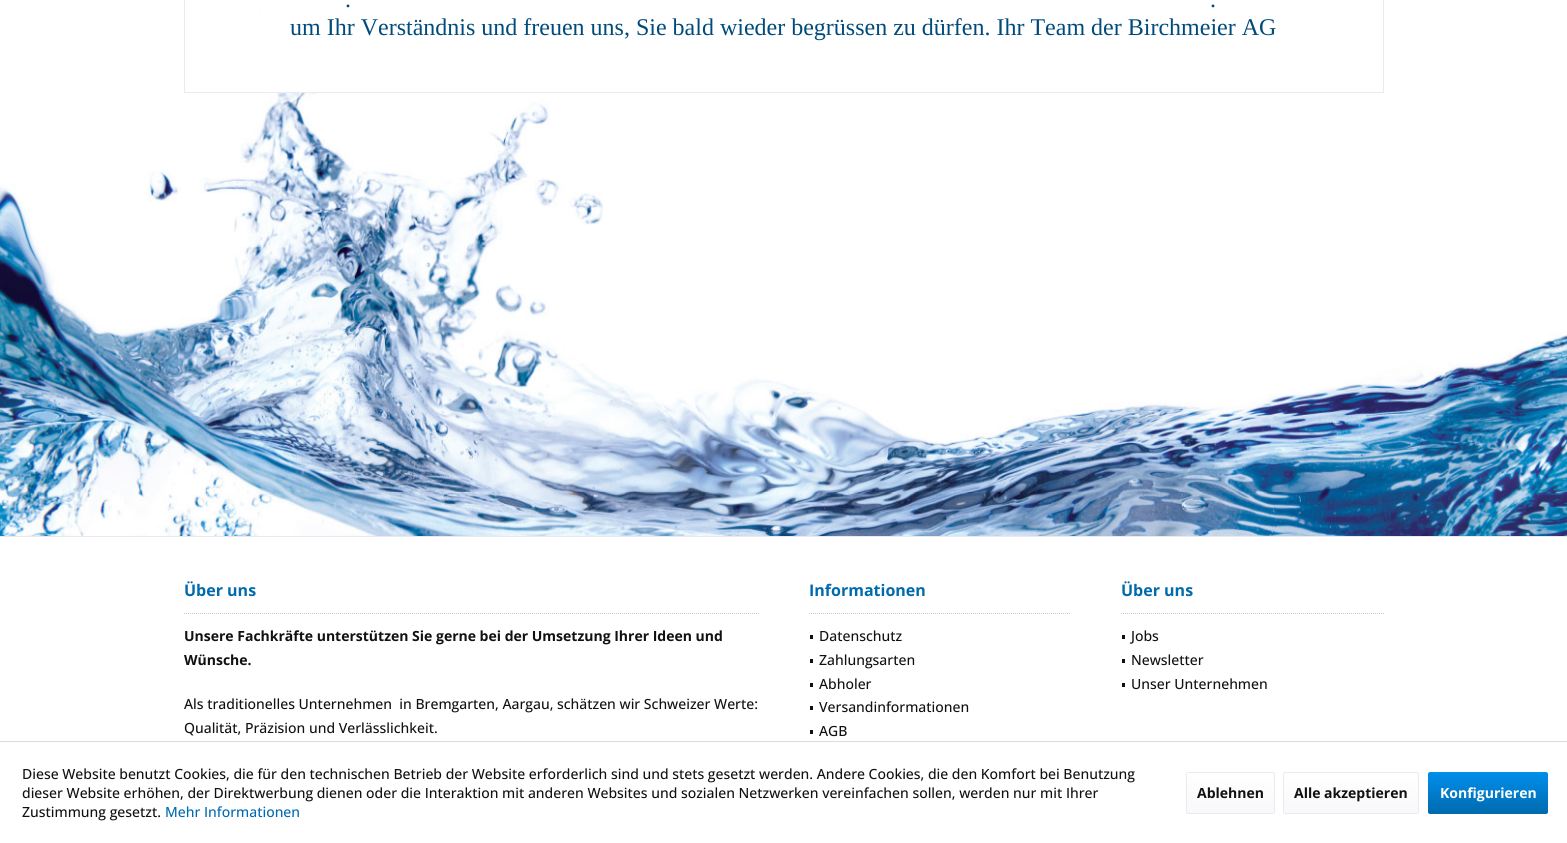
import math
import cairo

surface = cairo.ImageSurface(cairo.FORMAT_RGB24, 1567, 843)
ctx = cairo.Context(surface)
options = cairo.FontOptions()
options.set_hint_metrics(cairo.HINT_METRICS_OFF)
options.set_hint_style(cairo.HINT_STYLE_NONE)
ctx.set_font_options(options)
ctx.set_miter_limit(4)


def set_color(code):
    ctx.set_source_rgb(*(v / 255 for v in bytes.fromhex(code[-6:])))


def draw_text(x, y, s, family, size, color, bold=False, italic=False):
    ctx.select_font_face(family, cairo.FONT_SLANT_ITALIC if italic else cairo.FONT_SLANT_NORMAL, cairo.FONT_WEIGHT_BOLD if bold else cairo.FONT_WEIGHT_NORMAL)
    ctx.set_font_size(size)
    set_color(color)
    ctx.move_to(x, y)
    ctx.show_text(s)


def fill_rect(x, y, w, h, color):
    set_color(color)
    ctx.rectangle(x, y, w, h)
    ctx.fill()


def rounded_rect(x, y, w, h, r):
    ctx.new_sub_path()
    for i, (u, v) in enumerate([(x + w - r, y + h - r), (x + r, y + h - r), (x + r, y + r), (x + w - r, y + r)]):
        ctx.arc(u, v, r, i * math.pi / 2, (i + 1) * math.pi / 2)
    ctx.close_path()


def draw_image(path, x, y, w, h):
    ctx.save()
    ctx.set_source_surface(cairo.ImageSurface.create_from_png(path), x, y)
    ctx.rectangle(x, y, w, h)
    ctx.fill()
    ctx.restore()


set_color("#ffffff")
ctx.paint()
draw_image("assets/img1.png", 0, 0, 1567, 536)
fill_rect(263, 0, 62, 92, "#ffffff")
ctx.rectangle(184.5, -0.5, 1199, 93)
set_color("#eaeaf0")
ctx.set_line_width(1)
ctx.stroke()
draw_text(345, 7, ".", "Liberation Serif", 24, "#004b7b")
draw_text(1210, 7, ".", "Liberation Serif", 24, "#004b7b")
draw_text(290, 35, "um Ihr Verständnis und freuen uns, Sie bald wieder begrüssen zu dürfen. Ihr Team der Birchmeier AG", "Liberation Serif", 24, "#004b7b")
fill_rect(0, 536, 1567, 1, "#eaeaf0")
ctx.new_path()
ctx.move_to(184, 613.5)
ctx.line_to(759, 613.5)
set_color("#cccccc")
ctx.set_dash([1, 1])
ctx.stroke()
draw_text(184, 596, "Über uns", "Open Sans", 16, "#006aae", bold=True)
draw_text(184, 641, "Unsere Fachkräfte unterstützen Sie gerne bei der Umsetzung Ihrer Ideen und", "Open Sans", 14, "#111111", bold=True)
draw_text(184, 665, "Wünsche.", "Open Sans", 14, "#111111", bold=True)
draw_text(184, 709, "Als traditionelles Unternehmen  in Bremgarten, Aargau, schätzen wir Schweizer Werte:", "Open Sans Medium", 14, "#111111")
draw_text(184, 733, "Qualität, Präzision und Verlässlichkeit.", "Open Sans Medium", 14, "#111111")
ctx.new_path()
ctx.move_to(809, 613.5)
ctx.line_to(1071, 613.5)
set_color("#cccccc")
ctx.stroke()
draw_text(809, 596, "Informationen", "Open Sans", 16, "#006aae", bold=True)
fill_rect(810, 635, 3, 4, "#111111")
draw_text(819, 641, "Datenschutz", "Open Sans Medium", 14, "#111111")
fill_rect(810, 659, 3, 4, "#111111")
draw_text(819, 665, "Zahlungsarten", "Open Sans Medium", 14, "#111111")
fill_rect(810, 683, 3, 4, "#111111")
draw_text(819, 689, "Abholer", "Open Sans Medium", 14, "#111111")
fill_rect(810, 706, 3, 4, "#111111")
draw_text(819, 712, "Versandinformationen", "Open Sans Medium", 14, "#111111")
fill_rect(810, 730, 3, 4, "#111111")
draw_text(819, 736, "AGB", "Open Sans Medium", 14, "#111111")
ctx.new_path()
ctx.move_to(1121, 613.5)
ctx.line_to(1384, 613.5)
set_color("#cccccc")
ctx.stroke()
draw_text(1121, 596, "Über uns", "Open Sans", 16, "#006aae", bold=True)
fill_rect(1122, 635, 3, 4, "#111111")
draw_text(1131, 641, "Jobs", "Open Sans Medium", 14, "#111111")
fill_rect(1122, 659, 3, 4, "#111111")
draw_text(1131, 665, "Newsletter", "Open Sans Medium", 14, "#111111")
fill_rect(1122, 683, 3, 4, "#111111")
draw_text(1131, 689, "Unser Unternehmen", "Open Sans Medium", 14, "#111111")
fill_rect(0, 741, 1567, 1, "#dadae5")
draw_text(22, 779, "Diese Website benutzt Cookies, die für den technischen Betrieb der Website erforderlich sind und stets gesetzt werden. Andere Cookies, die den Komfort bei Benutzung", "Open Sans Medium", 14, "#111111")
draw_text(22, 798, "dieser Website erhöhen, der Direktwerbung dienen oder die Interaktion mit anderen Websites und sozialen Netzwerken vereinfachen sollen, werden nur mit Ihrer", "Open Sans Medium", 14, "#111111")
draw_text(22, 817, "Zustimmung gesetzt.", "Open Sans Medium", 14, "#111111")
draw_text(165, 817, "Mehr Informationen", "Open Sans Medium", 14, "#006aae")
gradient = cairo.LinearGradient(1231, 773, 1231, 813)
gradient.add_color_stop_rgba(0, 1, 1, 1, 1)
gradient.add_color_stop_rgba(1, 0.973, 0.973, 0.98, 1)
ctx.set_source(gradient)
rounded_rect(1187, 773, 87, 40, 1)
ctx.fill()
rounded_rect(1186.5, 772.5, 88, 41, 1.5)
set_color("#eaeaf0")
ctx.set_dash([])
ctx.stroke()
draw_text(1197, 798, "Ablehnen", "Open Sans", 14, "#111111", bold=True)
gradient = cairo.LinearGradient(1351, 773, 1351, 813)
gradient.add_color_stop_rgba(0, 1, 1, 1, 1)
gradient.add_color_stop_rgba(1, 0.973, 0.973, 0.98, 1)
ctx.set_source(gradient)
rounded_rect(1284, 773, 134, 40, 1)
ctx.fill()
rounded_rect(1283.5, 772.5, 135, 41, 1.5)
set_color("#eaeaf0")
ctx.stroke()
draw_text(1294, 798, "Alle akzeptieren", "Open Sans", 14, "#111111", bold=True)
gradient = cairo.LinearGradient(1488, 772, 1488, 814)
gradient.add_color_stop_rgba(0, 0, 0.561, 0.922, 1)
gradient.add_color_stop_rgba(1, 0, 0.416, 0.682, 1)
ctx.set_source(gradient)
rounded_rect(1428, 772, 120, 42, 2)
ctx.fill()
draw_text(1440, 798, "Konfigurieren", "Open Sans", 14, "#ffffff", bold=True)
surface.write_to_png("output.png")
